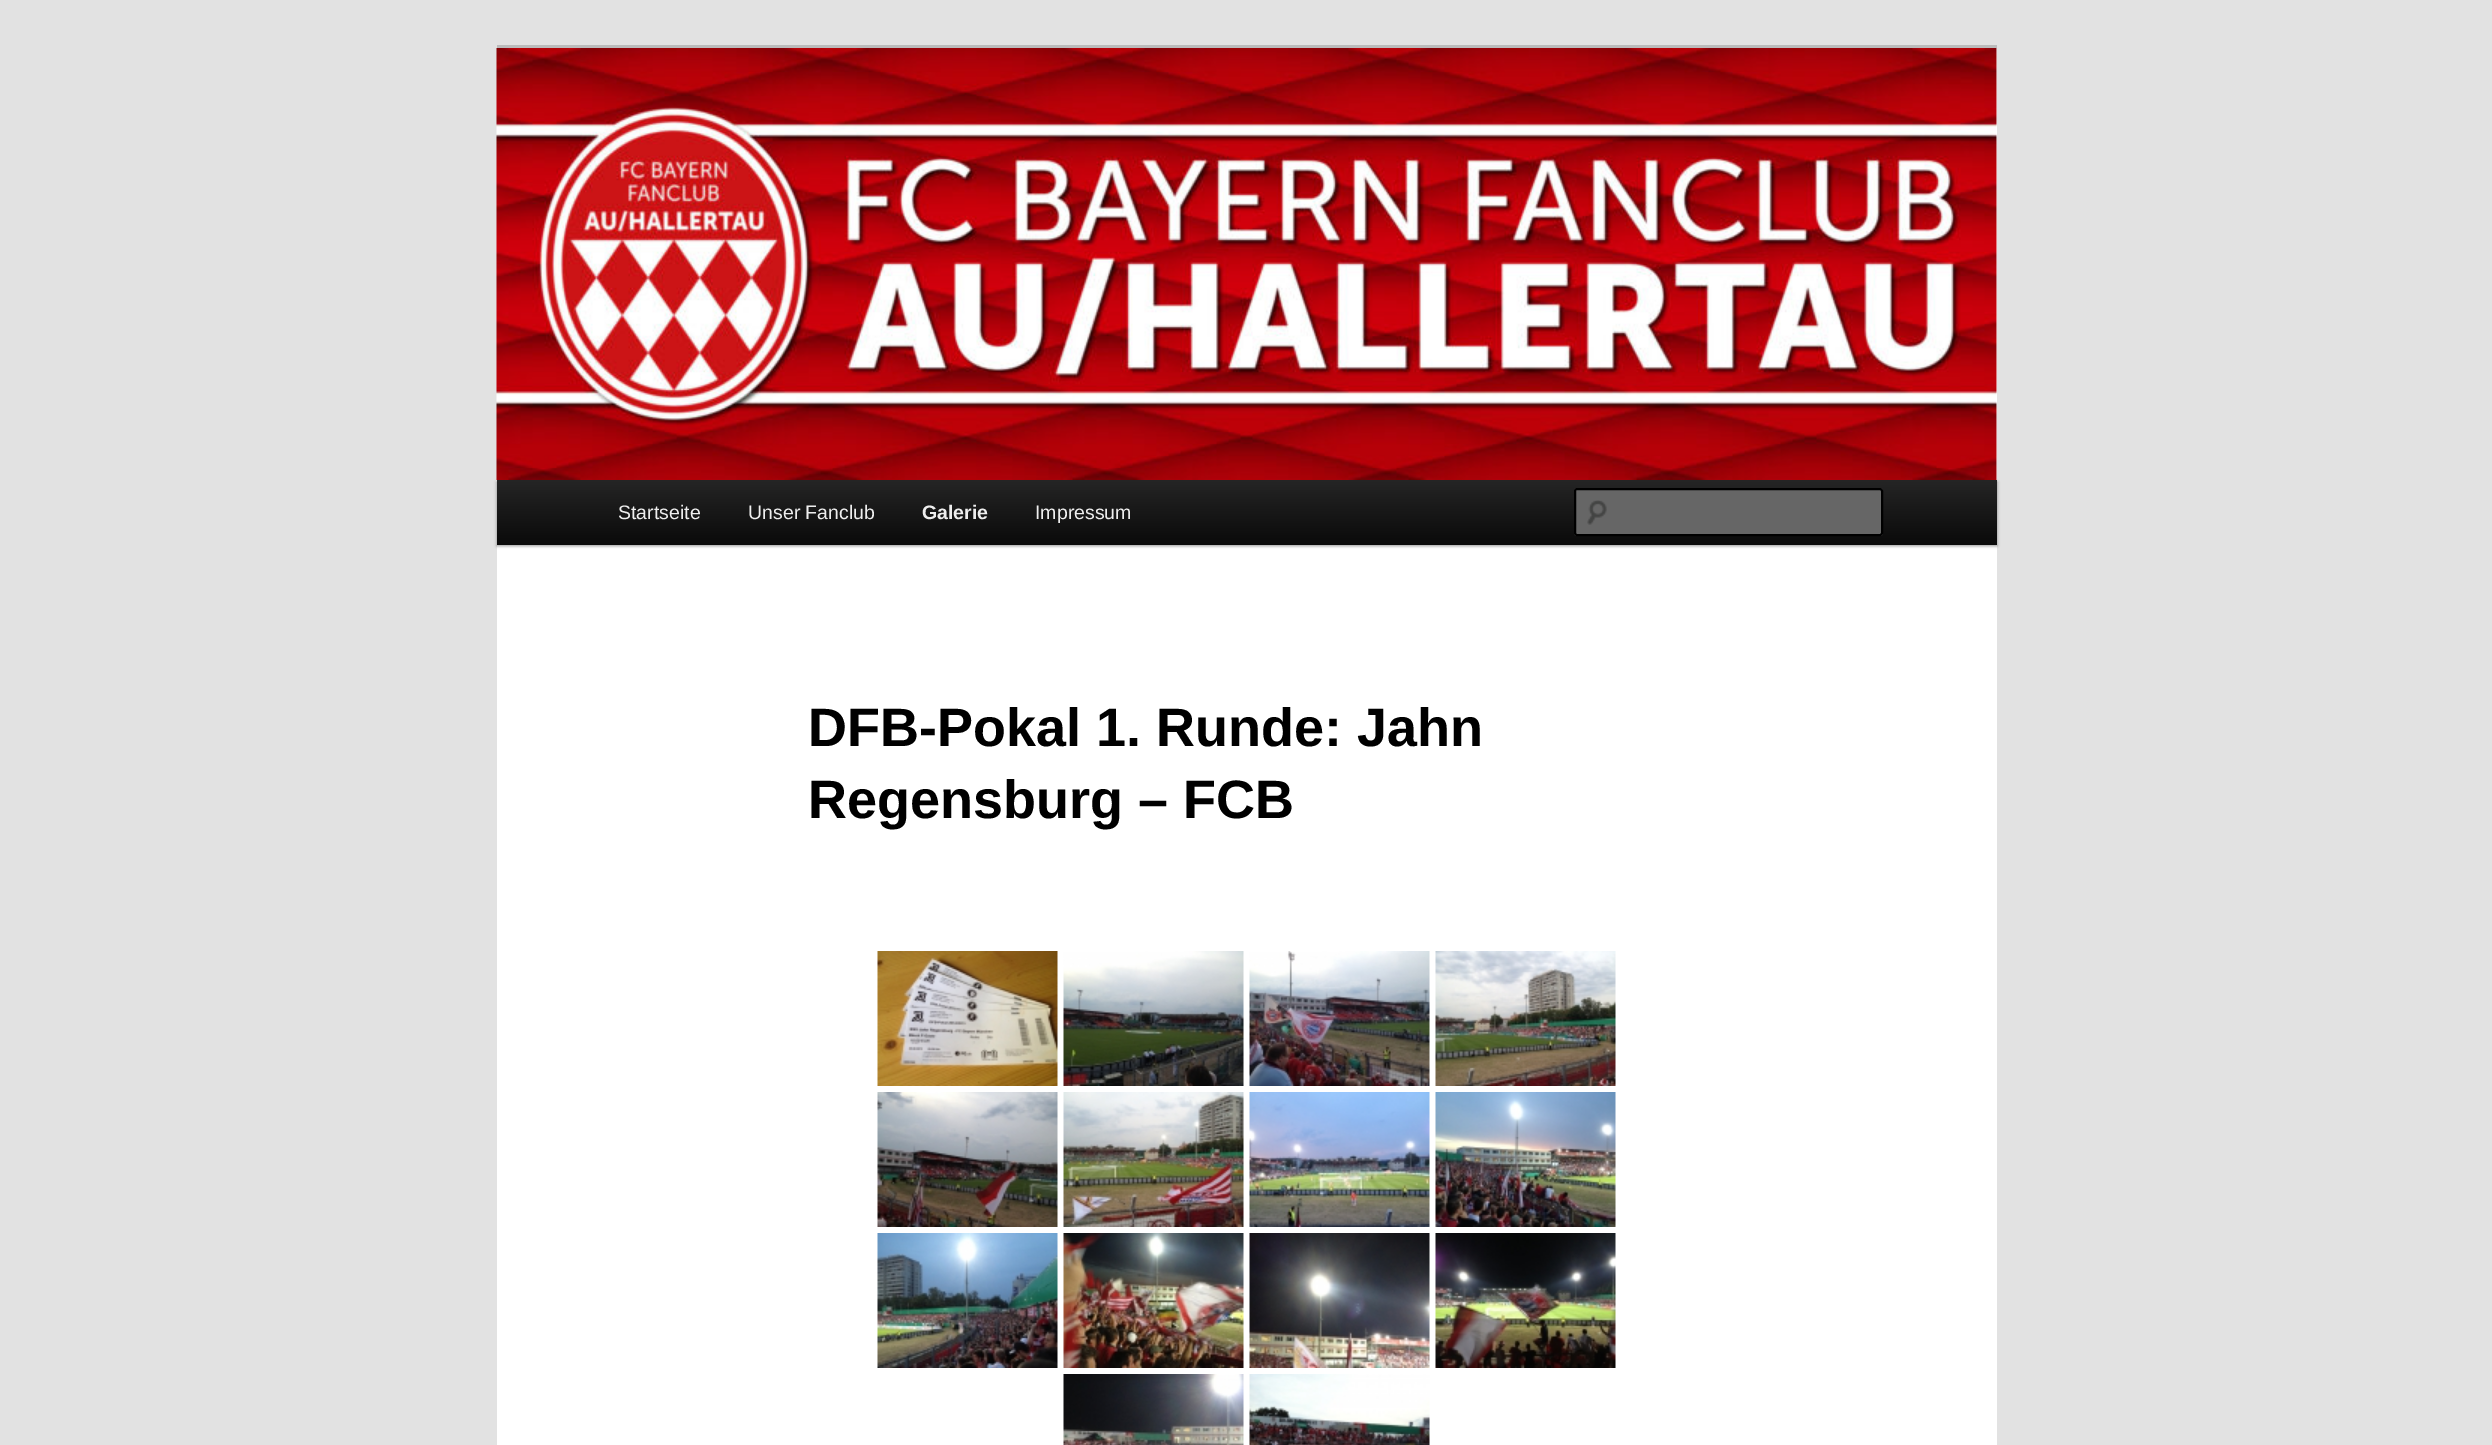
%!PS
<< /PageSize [2492 1445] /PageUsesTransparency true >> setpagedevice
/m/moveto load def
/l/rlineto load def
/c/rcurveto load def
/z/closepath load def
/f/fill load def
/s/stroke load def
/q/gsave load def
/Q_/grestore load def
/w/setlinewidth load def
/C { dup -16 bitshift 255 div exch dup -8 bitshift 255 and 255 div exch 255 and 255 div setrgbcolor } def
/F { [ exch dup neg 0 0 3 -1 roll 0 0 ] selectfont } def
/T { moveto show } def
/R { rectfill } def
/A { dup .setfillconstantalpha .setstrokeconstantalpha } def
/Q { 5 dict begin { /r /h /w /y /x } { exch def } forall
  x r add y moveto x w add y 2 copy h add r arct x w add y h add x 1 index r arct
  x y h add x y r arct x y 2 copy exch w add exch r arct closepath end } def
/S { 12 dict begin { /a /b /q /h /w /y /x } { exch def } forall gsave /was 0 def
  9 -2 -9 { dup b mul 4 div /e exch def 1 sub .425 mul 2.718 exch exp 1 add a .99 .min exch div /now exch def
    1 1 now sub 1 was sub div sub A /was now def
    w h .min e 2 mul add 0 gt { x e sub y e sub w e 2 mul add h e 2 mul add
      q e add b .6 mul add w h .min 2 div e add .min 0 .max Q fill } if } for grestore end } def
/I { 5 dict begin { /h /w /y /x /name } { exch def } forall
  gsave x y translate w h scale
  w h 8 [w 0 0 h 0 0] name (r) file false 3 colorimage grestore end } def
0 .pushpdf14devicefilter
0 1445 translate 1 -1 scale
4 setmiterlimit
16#E2E2E2 C
0 0 2492 1445 R
16#FFFFFF C
497 48 1500 1397 R
16#BBBBBB C
497 45 1500 3 R
16#000000 C
497 482 1500 64 0 1.5 .4 S
(1.rgb) 496 48 1501 432 I
q 497 480 m 1500 0 l 0 65 l -1500 0 l z clip newpath
<< /ShadingType 2 /ColorSpace /DeviceRGB /Coords [1247 480 1247 545] /Extend [true true] /Function << /FunctionType 2 /Domain [0 1] /C0 [.145 .145 .145] /C1 [.039 .039 .039] /N 1 >> >> shfill Q_
/LiberationSans-Regular 19.5 F
16#EEEEEE C
(Startseite) 618 519 T
(Unser Fanclub) 748 519 T
/LiberationSans-Bold 19.5 F
(Galerie) 922 519 T
/LiberationSans-Regular 19.5 F
(Impressum) 1035 519 T
16#666666 C
1574 488 309 48 3 Q f
(2.rgb) 1587 500 20 25 I
16#5C5C5C C
1576 490 m 304 0 l 1 2 l 0 -1 0 -3 -1 -3 c -304 0 l -1 1 l 0 2 l z f
16#000000 C
2 w
1575 489 307 46 2 Q s
/LiberationSans-Bold 54 F
(DFB-Pokal 1. Runde: Jahn) 808 746 T
(Regensburg – FCB) 808 818 T
(3.rgb) 877 951 181 135 I
(4.rgb) 1063 951 181 135 I
(5.rgb) 1249 951 181 135 I
(6.rgb) 1435 951 181 135 I
(7.rgb) 877 1092 181 135 I
(8.rgb) 1063 1092 181 135 I
(9.rgb) 1249 1092 181 135 I
(10.rgb) 1435 1092 181 135 I
(11.rgb) 877 1233 181 135 I
(12.rgb) 1063 1233 181 135 I
(13.rgb) 1249 1233 181 135 I
(14.rgb) 1435 1233 181 135 I
(15.rgb) 1063 1374 181 71 I
(16.rgb) 1249 1374 181 71 I
.poppdf14devicefilter showpage
